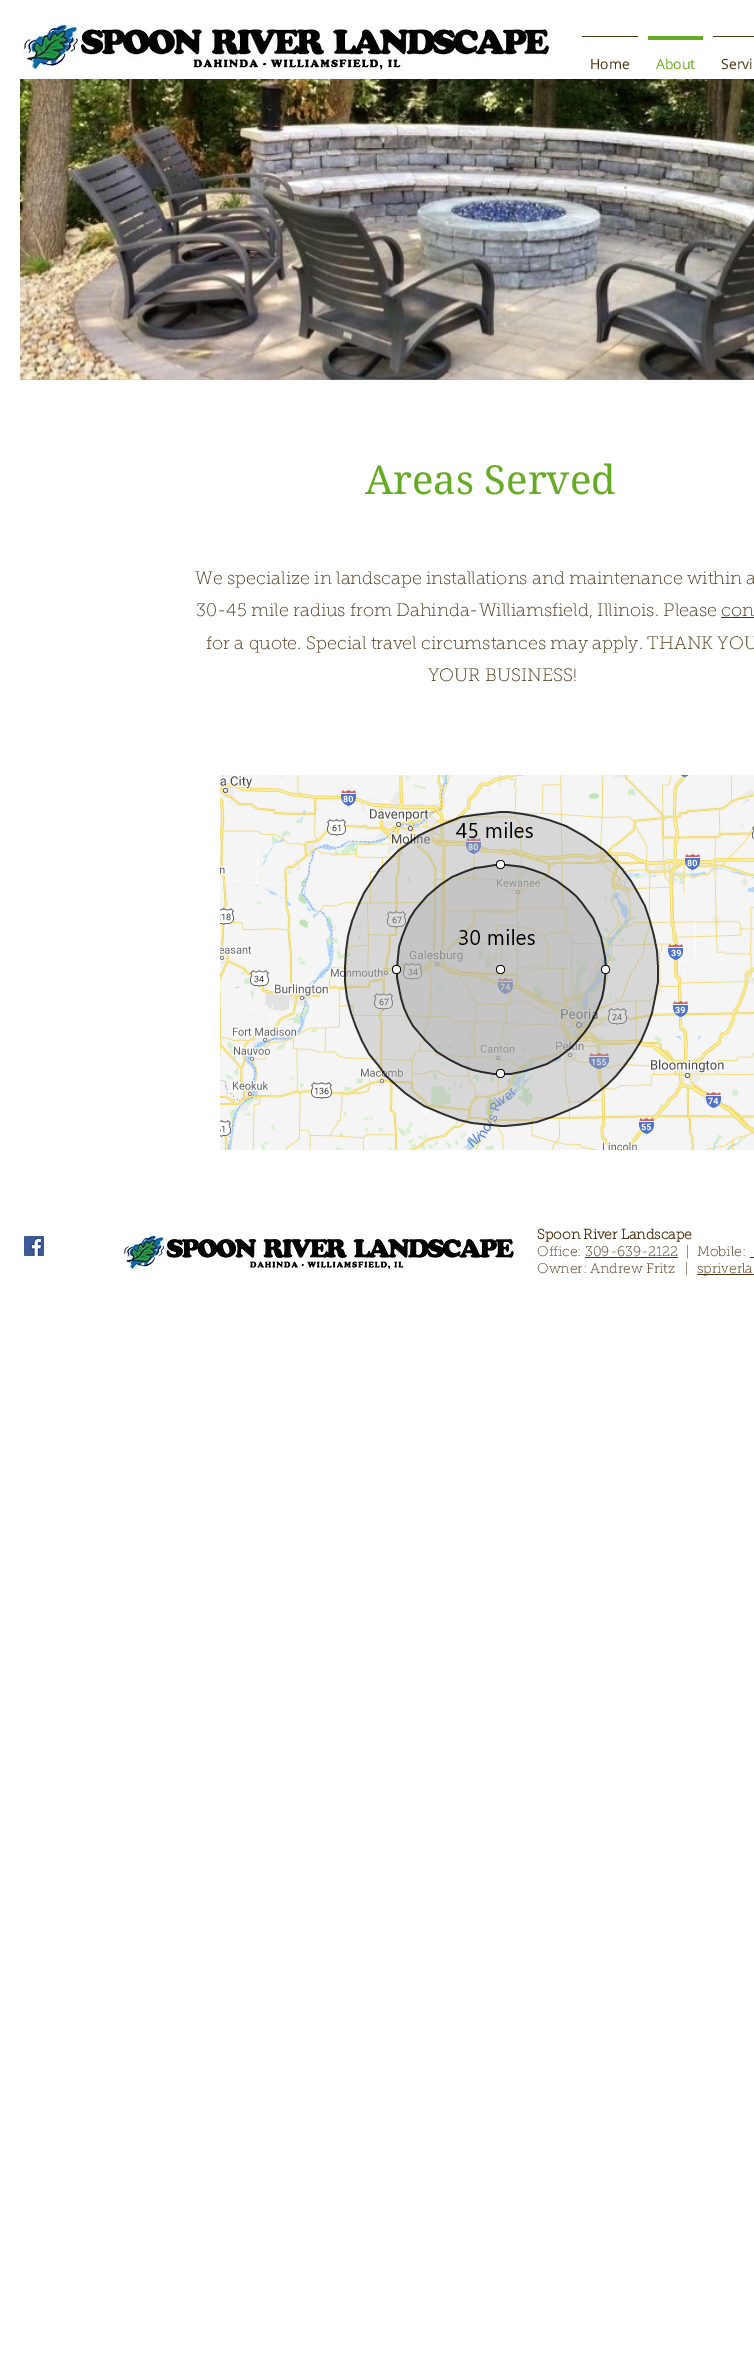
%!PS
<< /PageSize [754 2379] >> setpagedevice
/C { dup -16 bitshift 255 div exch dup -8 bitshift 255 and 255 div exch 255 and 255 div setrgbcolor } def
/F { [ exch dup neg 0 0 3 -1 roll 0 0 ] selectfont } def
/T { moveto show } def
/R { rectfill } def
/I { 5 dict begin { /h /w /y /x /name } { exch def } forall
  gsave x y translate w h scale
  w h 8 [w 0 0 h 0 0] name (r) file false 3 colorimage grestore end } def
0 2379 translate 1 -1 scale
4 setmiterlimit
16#FFFFFF C
0 0 754 2379 R
(1.rgb) 20 24 532 49 I
16#493414 C
582 36 56 1 R
/OpenSans-Regular 14 F
(Home) 590 69 T
16#65AB24 C
648 36 55 4 R
(About) 656 69 T
16#493414 C
713 36 41 1 R
(Servi) 721 69 T
(2.rgb) 20 79 734 301 I
/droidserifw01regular-Regular 40 F
16#65AB24 C
(Areas Served) 365 494 T
/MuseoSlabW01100-Thin 18 F
16#493414 C
(We specialize in landscape installations and maintenance within a) 195 584 T
(30-45 mile radius from Dahinda-Williamsfield, Illinois. Please con) 196 616 T
721 617 33 1 R
(for a quote. Special travel circumstances may apply. THANK YOU) 206 649 T
(YOUR BUSINESS!) 428 681 T
(3.rgb) 220 775 534 375 I
(4.rgb) 24 1236 20 20 I
(5.rgb) 122 1230 392 40 I
/MuseoSlabW01100-Bold 14 F
(Spoon River Landscape) 537 1239 T
/MuseoSlabW01100-Thin 14 F
(Office: 309-639-2122) 537 1256 T
585 1257 93 1 R
(|  Mobile:) 686 1256 T
750 1257 4 1 R
(Owner: Andrew Fritz   |) 537 1273 T
697 1274 57 1 R
(spriverla) 697 1273 T
showpage
